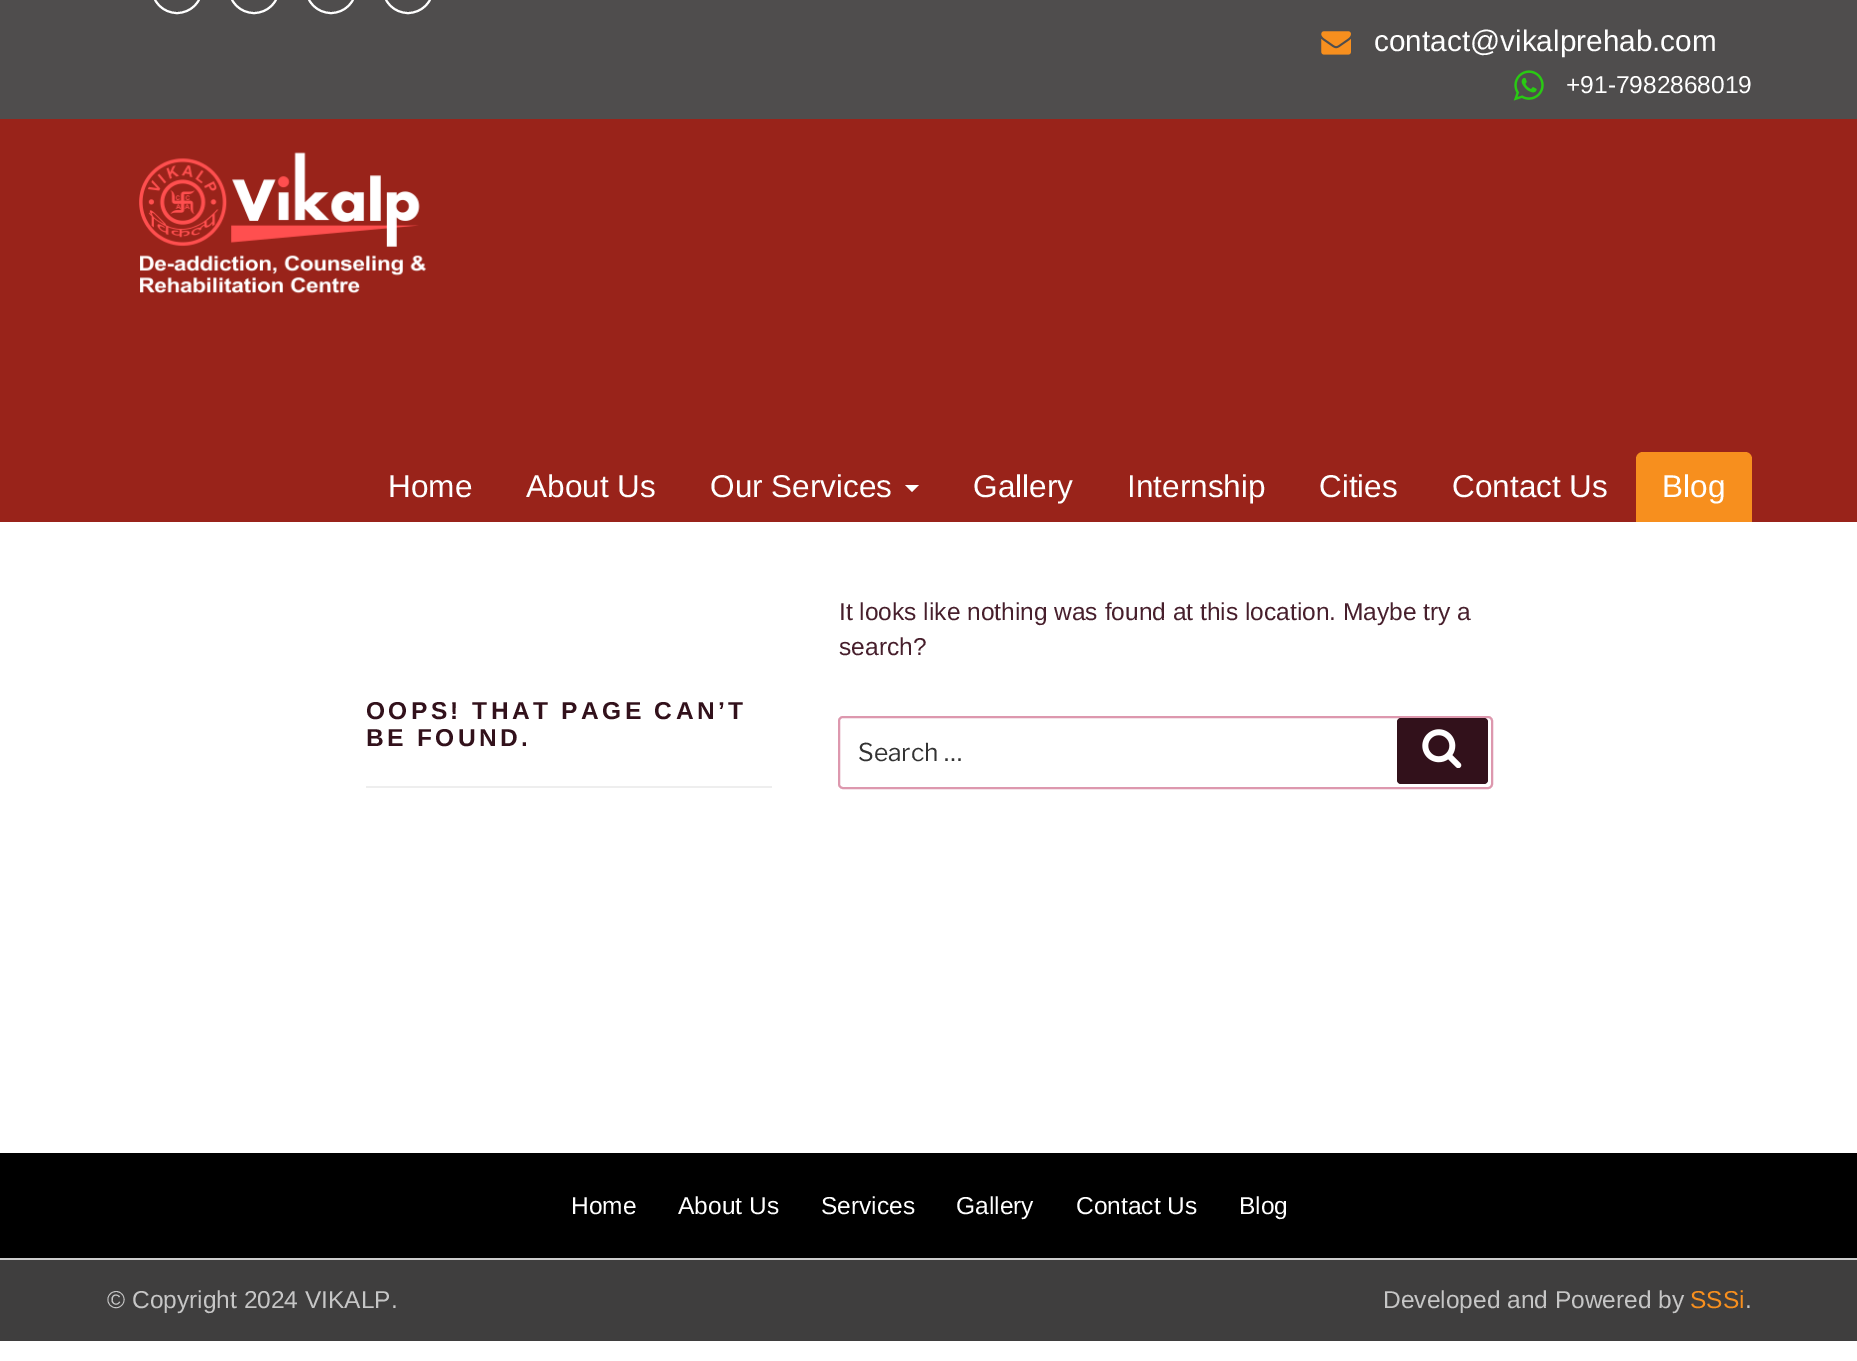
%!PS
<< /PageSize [1857 1361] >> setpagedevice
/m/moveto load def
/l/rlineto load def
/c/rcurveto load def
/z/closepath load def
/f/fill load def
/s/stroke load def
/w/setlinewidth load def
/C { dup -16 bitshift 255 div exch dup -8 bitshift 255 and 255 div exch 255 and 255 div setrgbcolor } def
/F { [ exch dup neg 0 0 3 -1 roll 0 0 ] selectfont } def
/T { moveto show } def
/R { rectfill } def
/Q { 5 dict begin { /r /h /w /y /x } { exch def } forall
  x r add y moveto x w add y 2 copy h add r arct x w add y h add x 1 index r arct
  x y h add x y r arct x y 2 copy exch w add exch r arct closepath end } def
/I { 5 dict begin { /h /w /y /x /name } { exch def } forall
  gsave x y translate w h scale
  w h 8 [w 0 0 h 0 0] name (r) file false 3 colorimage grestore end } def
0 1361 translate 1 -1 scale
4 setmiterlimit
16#FFFFFF C
0 0 1857 1361 R
16#4F4D4D C
0 0 1857 119 R
16#FFFFFF C
2 w
152 -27 50 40 25 Q s
229 -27 50 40 25 Q s
306 -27 50 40 25 Q s
383 -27 50 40 25 Q s
(1.rgb) 1321 31 30 24 I
/LiberationSans-Regular 29.75 F
(contact@vikalprehab.com) 1374 51 T
(2.rgb) 1513 70 31 31 I
/LiberationSans-Regular 24.5 F
(+91-7982868019) 1566 93 T
16#99231A C
0 119 1857 403 R
(3.rgb) 139 152 288 142 I
/LiberationSans-Regular 31.5 F
16#FFFFFF C
(Home) 388 497 T
(About Us) 526 497 T
(Our Services) 710 497 T
905 485 m 14 0 l -7 7 l z f
(Gallery) 973 497 T
(Internship) 1127 497 T
(Cities) 1319 497 T
(Contact Us) 1452 497 T
16#F78F1E C
1643 452 m 102 0 l 4 0 7 3 7 7 c 0 63 l -116 0 l 0 -63 l 0 -4 3 -7 7 -7 c z f
16#FFFFFF C
(Blog) 1662 497 T
16#EEEEEE C
366 786 406 2 R
/LiberationSans-Bold 24.5 F
16#32111B C
366 719 m 3.4 0 (OOPS! THAT PAGE CAN’T) ashow
366 746 m 3.4 0 (BE FOUND.) ashow
/LiberationSans-Regular 24.5 F
16#471F2C C
(It looks like nothing was found at this location. Maybe try a) 839 620 T
(search?) 839 655 T
16#DD98AE C
839 717 653 71 4 Q s
/LibreFranklin-Regular 24.5 F
16#333333 C
(Search …) 858 761 T
16#32111B C
1397 718 91 66 4 Q f
(4.rgb) 1422 729 40 39 I
16#000000 C
0 1153 1857 105 R
16#CCCCCC C
0 1258 1857 2 R
/LiberationSans-Regular 24.5 F
16#FFFFFF C
(Home) 571 1214 T
(About Us) 678 1214 T
(Services) 821 1214 T
(Gallery) 956 1214 T
(Contact Us) 1076 1214 T
(Blog) 1239 1214 T
16#3F3E3E C
0 1260 1857 81 R
16#C6C6C6 C
(© Copyright 2024 VIKALP.) 107 1308 T
(Developed and Powered by) 1383 1308 T
16#F78F1E C
(SSSi) 1690 1308 T
16#C6C6C6 C
(.) 1745 1308 T
showpage
